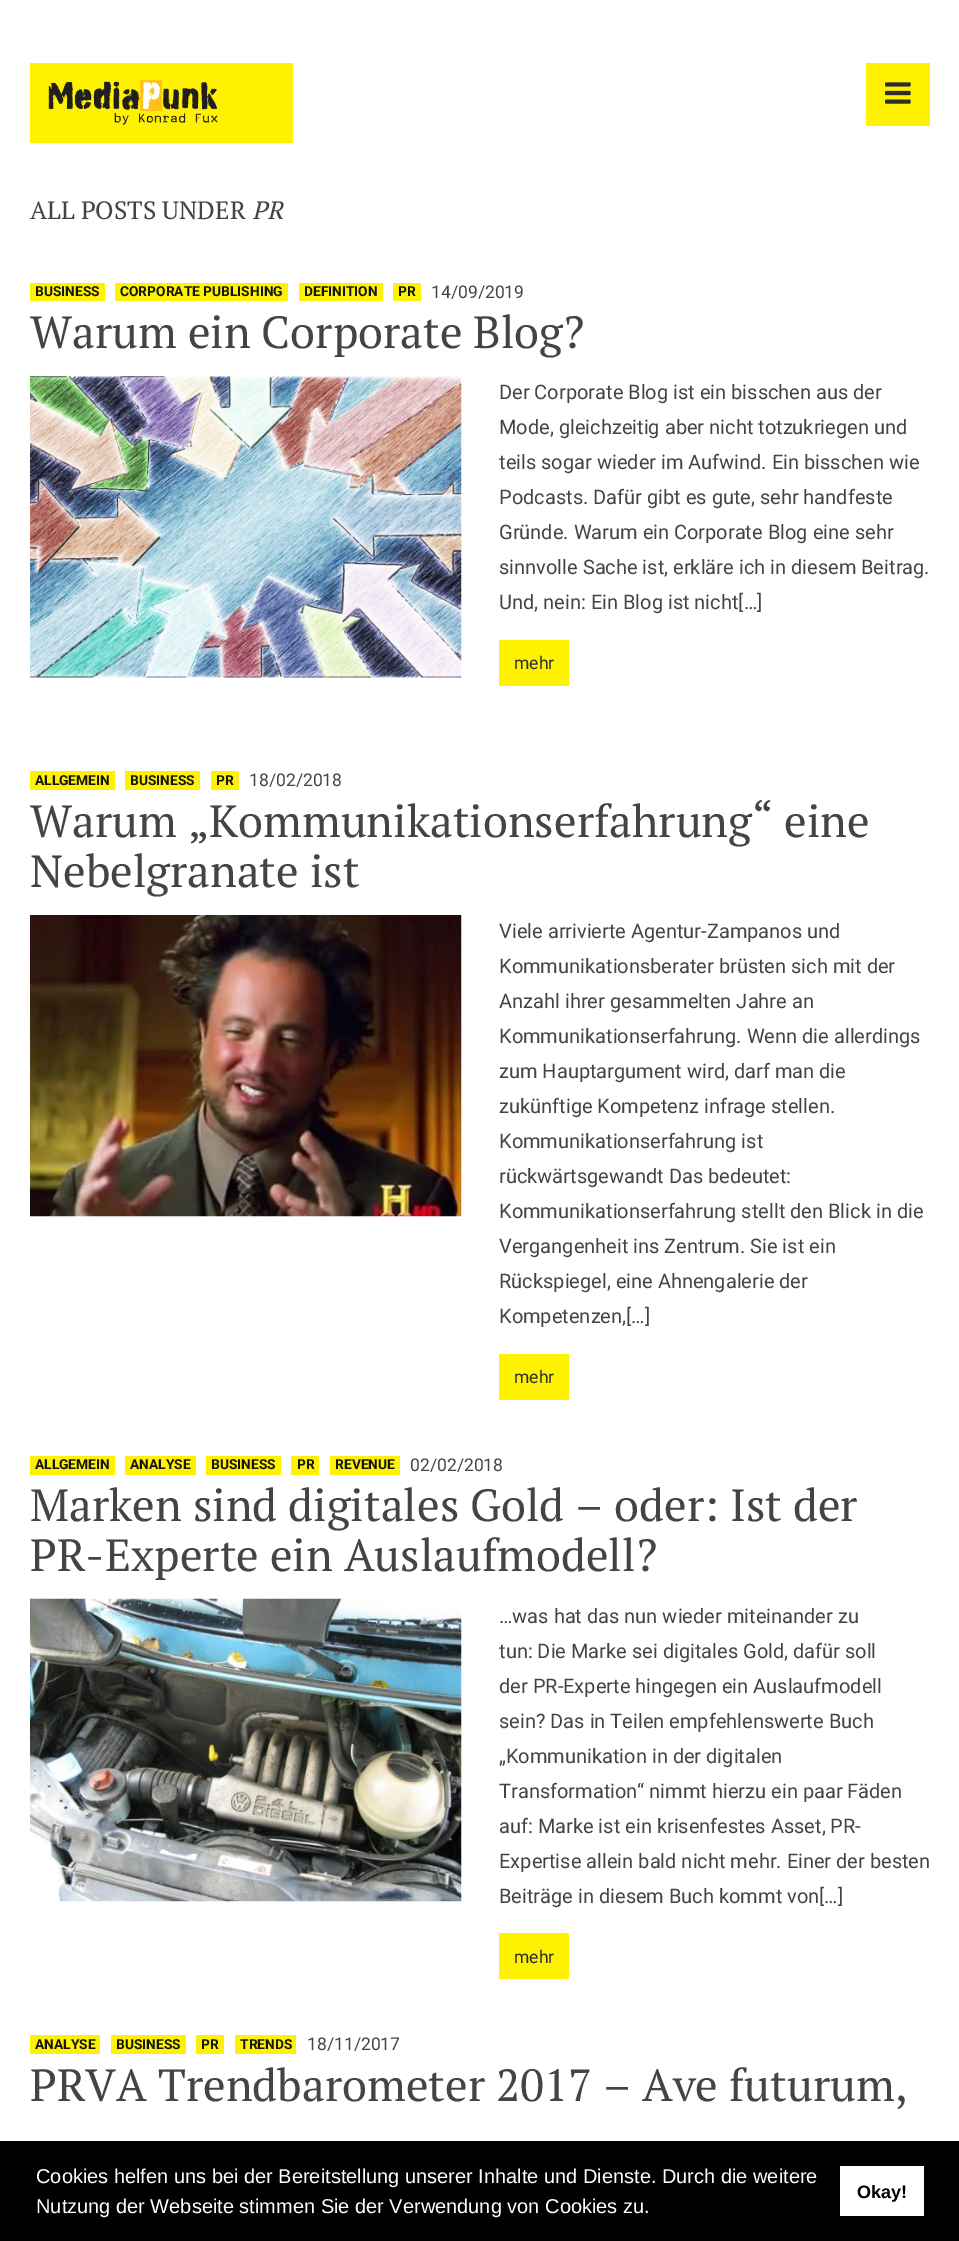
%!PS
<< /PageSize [959 2241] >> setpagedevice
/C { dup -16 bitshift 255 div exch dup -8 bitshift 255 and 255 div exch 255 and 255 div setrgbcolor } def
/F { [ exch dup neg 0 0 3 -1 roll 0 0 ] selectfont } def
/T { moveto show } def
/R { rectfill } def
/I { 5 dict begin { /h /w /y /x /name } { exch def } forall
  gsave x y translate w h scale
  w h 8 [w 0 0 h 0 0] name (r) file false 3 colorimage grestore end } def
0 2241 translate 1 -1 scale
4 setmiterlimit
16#FFFFFF C
0 0 959 2241 R
16#FFF200 C
30 63 263 80 R
(1.rgb) 48 80 170 45 I
866 63 64 63 R
(2.rgb) 885 82 26 22 I
/PTSerif-Regular 25 F
16#444444 C
(ALL POSTS UNDER) 30 219 T
/PTSerif-Italic 25 F
(PR) 252 219 T
16#FFF200 C
30 283 75 18 R
/Roboto-Bold 13.75 F
16#141414 C
(BUSINESS) 35 296 T
16#FFF200 C
115 283 173 18 R
16#141414 C
(CORPORATE PUBLISHING) 120 296 T
16#FFF200 C
299 283 84 18 R
16#141414 C
(DEFINITION) 304 296 T
16#FFF200 C
393 283 28 18 R
16#141414 C
(PR) 398 296 T
/Roboto-Regular 17.5 F
16#444444 C
(14/09/2019) 431 298 T
/PTSerif-Regular 45 F
(Warum ein Corporate Blog?) 30 348 T
(3.rgb) 30 376 432 302 I
/Roboto-Regular 20 F
(Der Corporate Blog ist ein bisschen aus der) 499 399 T
(Mode, gleichzeitig aber nicht totzukriegen und) 499 434 T
(teils sogar wieder im Aufwind. Ein bisschen wie) 499 469 T
(Podcasts. Dafür gibt es gute, sehr handfeste) 499 504 T
(Gründe. Warum ein Corporate Blog eine sehr) 499 539 T
(sinnvolle Sache ist, erkläre ich in diesem Beitrag.) 499 574 T
(Und, nein: Ein Blog ist nicht[…]) 499 609 T
16#FFF200 C
499 640 70 46 R
/Roboto-Regular 17.5 F
16#2E2E2E C
(mehr) 514 669 T
16#FFF200 C
30 771 85 19 R
/Roboto-Bold 13.75 F
16#141414 C
(ALLGEMEIN) 35 785 T
16#FFF200 C
125 771 75 19 R
16#141414 C
(BUSINESS) 130 785 T
16#FFF200 C
211 771 28 19 R
16#141414 C
(PR) 216 785 T
/Roboto-Regular 17.5 F
16#444444 C
(18/02/2018) 249 786 T
/PTSerif-Regular 45 F
(Warum „Kommunikationserfahrung“ eine) 30 837 T
(Nebelgranate ist) 30 887 T
(4.rgb) 30 915 432 302 I
/Roboto-Regular 20 F
(Viele arrivierte Agentur-Zampanos und) 499 938 T
(Kommunikationsberater brüsten sich mit der) 499 973 T
(Anzahl ihrer gesammelten Jahre an) 499 1008 T
(Kommunikationserfahrung. Wenn die allerdings) 499 1043 T
(zum Hauptargument wird, darf man die) 499 1078 T
(zukünftige Kompetenz infrage stellen.) 499 1113 T
(Kommunikationserfahrung ist) 499 1148 T
(rückwärtsgewandt Das bedeutet:) 499 1183 T
(Kommunikationserfahrung stellt den Blick in die) 499 1218 T
(Vergangenheit ins Zentrum. Sie ist ein) 499 1253 T
(Rückspiegel, eine Ahnengalerie der) 499 1288 T
(Kompetenzen,[…]) 499 1323 T
16#FFF200 C
499 1354 70 46 R
/Roboto-Regular 17.5 F
16#2E2E2E C
(mehr) 514 1383 T
16#FFF200 C
30 1456 85 19 R
/Roboto-Bold 13.75 F
16#141414 C
(ALLGEMEIN) 35 1469 T
16#FFF200 C
125 1456 71 19 R
16#141414 C
(ANALYSE) 130 1469 T
16#FFF200 C
206 1456 75 19 R
16#141414 C
(BUSINESS) 211 1469 T
16#FFF200 C
291 1456 28 19 R
16#141414 C
(PR) 297 1469 T
16#FFF200 C
330 1456 70 19 R
16#141414 C
(REVENUE) 335 1469 T
/Roboto-Regular 17.5 F
16#444444 C
(02/02/2018) 410 1471 T
/PTSerif-Regular 45 F
(Marken sind digitales Gold – oder: Ist der) 30 1521 T
(PR-Experte ein Auslaufmodell?) 30 1571 T
(5.rgb) 30 1598 432 304 I
/Roboto-Regular 20 F
(…was hat das nun wieder miteinander zu) 499 1623 T
(tun: Die Marke sei digitales Gold, dafür soll) 499 1658 T
(der PR-Experte hingegen ein Auslaufmodell) 499 1693 T
(sein? Das in Teilen empfehlenswerte Buch) 499 1728 T
(„Kommunikation in der digitalen) 499 1763 T
(Transformation“ nimmt hierzu ein paar Fäden) 499 1798 T
(auf: Marke ist ein krisenfestes Asset, PR-) 499 1833 T
(Expertise allein bald nicht mehr. Einer der besten) 499 1868 T
(Beiträge in diesem Buch kommt von[…]) 499 1903 T
16#FFF200 C
499 1933 70 46 R
/Roboto-Regular 17.5 F
16#2E2E2E C
(mehr) 514 1963 T
16#FFF200 C
30 2035 70 19 R
/Roboto-Bold 13.75 F
16#141414 C
(ANALYSE) 35 2049 T
16#FFF200 C
111 2035 75 19 R
16#141414 C
(BUSINESS) 116 2049 T
16#FFF200 C
196 2035 28 19 R
16#141414 C
(PR) 201 2049 T
16#FFF200 C
235 2035 61 19 R
16#141414 C
(TRENDS) 240 2049 T
/Roboto-Regular 17.5 F
16#444444 C
(18/11/2017) 307 2050 T
/PTSerif-Regular 45 F
(PRVA Trendbarometer 2017 – Ave futurum,) 30 2101 T
16#000000 C
0 2141 959 100 R
/LiberationSans-Regular 20 F
16#FFFFFF C
(Cookies helfen uns bei der Bereitstellung unserer Inhalte und Dienste. Durch die weitere) 36 2183 T
(Nutzung der Webseite stimmen Sie der Verwendung von Cookies zu.) 36 2213 T
840 2166 84 50 R
/LiberationSans-Bold 18 F
16#000000 C
(Okay!) 857 2198 T
showpage
